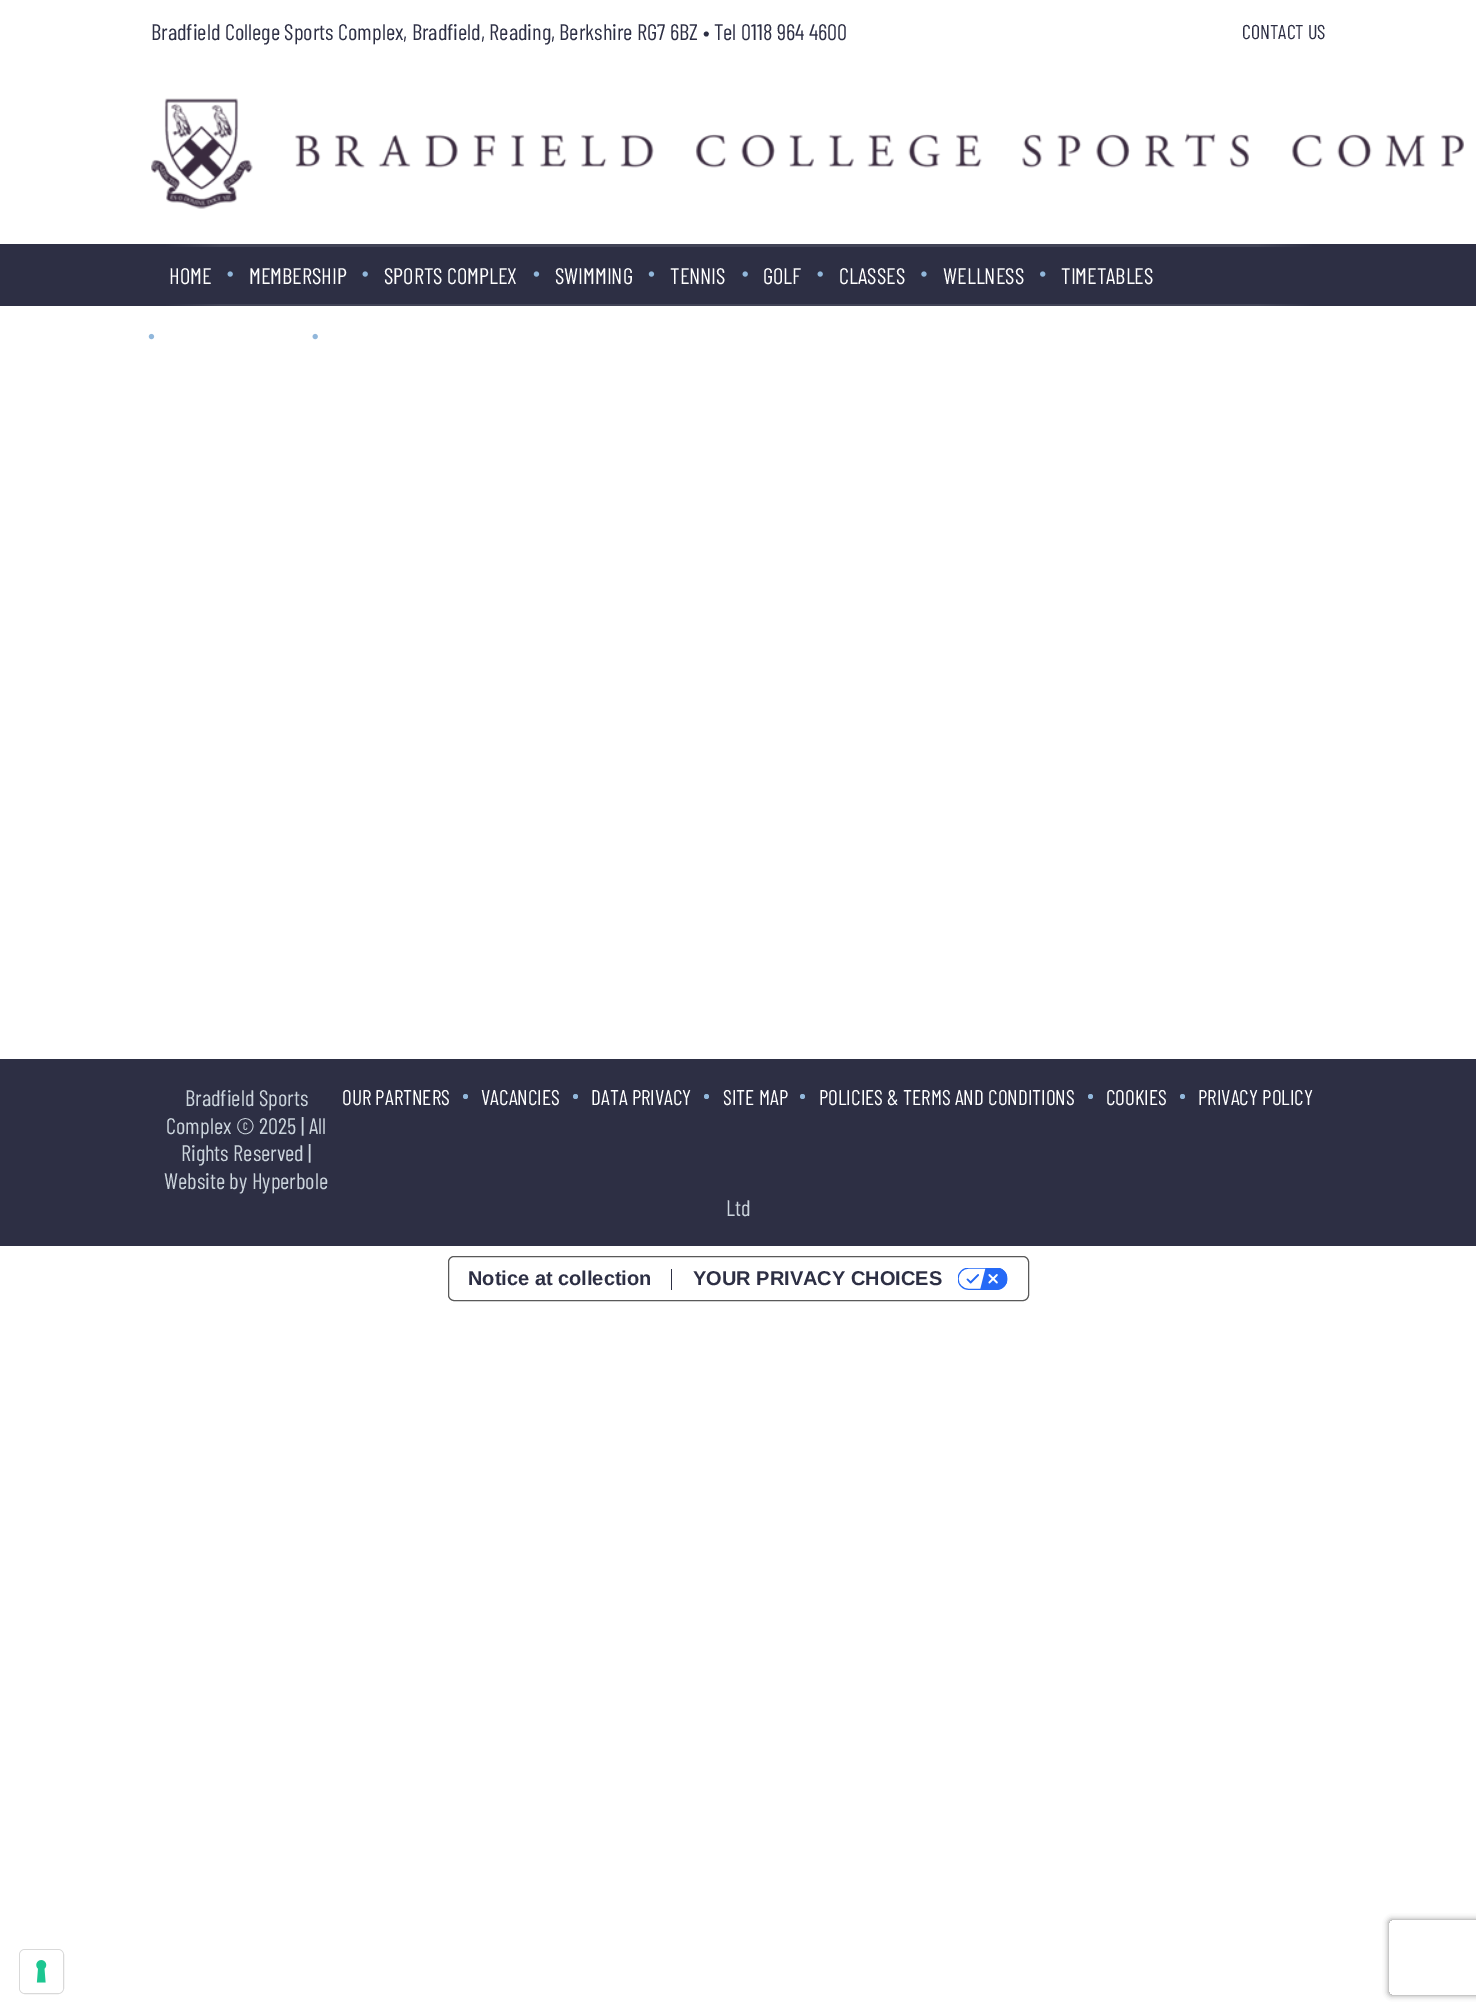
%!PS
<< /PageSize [1476 2012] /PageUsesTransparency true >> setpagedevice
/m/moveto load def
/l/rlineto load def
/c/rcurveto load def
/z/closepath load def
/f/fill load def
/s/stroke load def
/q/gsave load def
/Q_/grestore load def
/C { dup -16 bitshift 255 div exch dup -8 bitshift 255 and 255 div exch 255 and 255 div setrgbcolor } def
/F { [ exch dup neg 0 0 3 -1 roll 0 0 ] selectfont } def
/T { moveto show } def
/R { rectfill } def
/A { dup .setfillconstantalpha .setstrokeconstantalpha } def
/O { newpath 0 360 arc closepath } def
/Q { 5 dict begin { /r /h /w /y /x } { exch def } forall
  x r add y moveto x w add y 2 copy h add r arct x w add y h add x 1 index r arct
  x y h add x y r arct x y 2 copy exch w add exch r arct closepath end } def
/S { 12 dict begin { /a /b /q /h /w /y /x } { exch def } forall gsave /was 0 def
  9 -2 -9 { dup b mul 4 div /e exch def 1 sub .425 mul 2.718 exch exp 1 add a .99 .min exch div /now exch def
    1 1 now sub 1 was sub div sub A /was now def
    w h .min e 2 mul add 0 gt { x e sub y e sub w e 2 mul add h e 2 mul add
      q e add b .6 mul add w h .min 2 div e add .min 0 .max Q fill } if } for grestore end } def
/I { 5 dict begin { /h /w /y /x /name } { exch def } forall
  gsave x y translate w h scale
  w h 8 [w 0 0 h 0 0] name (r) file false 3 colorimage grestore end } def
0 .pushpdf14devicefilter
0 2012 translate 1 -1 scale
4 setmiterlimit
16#FFFFFF C
0 0 1476 2012 R
/BarlowCondensed-Regular 22.5 F
16#2D2F44 C
(Bradfield College Sports Complex, Bradfield, Reading, Berkshire RG7 6BZ • Tel 0118 964 4600) 151 40 T
/BarlowCondensed-Regular 20 F
(CONTACT US) 1242 39 T
(1.rgb) 151 98 1313 111 I
0 244 1476 62 R
q 163 304 m 1152 0 l 0 2 l -1152 0 l z clip newpath
<< /ShadingType 2 /ColorSpace /DeviceRGB /Coords [163 305 1315 305] /Extend [true true] /Function << /FunctionType 3 /Domain [0 1] /Functions [<< /FunctionType 2 /Domain [0 1] /C0 [.176 .184 .267] /C1 [.259 .267 .341] /N 1 >> << /FunctionType 2 /Domain [0 1] /C0 [.259 .267 .341] /C1 [.259 .267 .341] /N 1 >> << /FunctionType 2 /Domain [0 1] /C0 [.259 .267 .341] /C1 [.176 .184 .267] /N 1 >>] /Bounds [.05 .95] /Encode [0 1 0 1 0 1] >> >> shfill Q_
q 163 244 m 1152 0 l 0 3 l -1152 0 l z clip newpath
<< /ShadingType 2 /ColorSpace /DeviceRGB /Coords [163 245 1315 245] /Extend [true true] /Function << /FunctionType 3 /Domain [0 1] /Functions [<< /FunctionType 2 /Domain [0 1] /C0 [.176 .184 .267] /C1 [.259 .267 .341] /N 1 >> << /FunctionType 2 /Domain [0 1] /C0 [.259 .267 .341] /C1 [.259 .267 .341] /N 1 >> << /FunctionType 2 /Domain [0 1] /C0 [.259 .267 .341] /C1 [.176 .184 .267] /N 1 >>] /Bounds [.05 .95] /Encode [0 1 0 1 0 1] >> >> shfill Q_
/BarlowCondensed-Regular 22.5 F
16#FFFFFF C
(HOME) 169 284 T
(2.rgb) 227 271 6 6 I
(MEMBERSHIP) 249 284 T
(2.rgb) 362 271 6 6 I
(SPORTS COMPLEX) 384 284 T
(3.rgb) 533 271 7 6 I
(SWIMMING) 555 284 T
(3.rgb) 648 271 7 6 I
(TENNIS) 670 284 T
(2.rgb) 742 271 6 6 I
(GOLF) 763 284 T
(2.rgb) 817 271 6 6 I
(CLASSES) 839 284 T
(4.rgb) 921 271 6 6 I
(WELLNESS) 943 284 T
(5.rgb) 1040 271 6 6 I
(TIMETABLES) 1061 284 T
(6.rgb) 148 333 7 7 I
(7.rgb) 312 333 6 7 I
16#2D2F44 C
0 1059 1476 187 R
16#CCD5DD C
(Bradfield Sports) 185 1106 T
/BarlowCondensed-Regular 21.25 F
16#FFFFFF C
(OUR PARTNERS) 342 1105 T
16#91B7DB C
465.5 1096.5 2.5 O f
16#FFFFFF C
(VACANCIES) 481 1105 T
16#91B7DB C
575.5 1096.5 2.5 O f
16#FFFFFF C
(DATA PRIVACY) 591 1105 T
16#91B7DB C
706.5 1096.5 2.5 O f
16#FFFFFF C
(SITE MAP) 723 1105 T
16#91B7DB C
802.5 1096.5 2.5 O f
16#FFFFFF C
(POLICIES & TERMS AND CONDITIONS) 819 1105 T
16#91B7DB C
1090.5 1096.5 2.5 O f
16#FFFFFF C
(COOKIES) 1106 1105 T
16#91B7DB C
1182.5 1096.5 2.5 O f
16#FFFFFF C
(PRIVACY POLICY) 1198 1105 T
/BarlowCondensed-Regular 22.5 F
16#CCD5DD C
(Complex © 2025 | All) 166 1134 T
(Rights Reserved |) 181 1161 T
(Website by Hyperbole) 164 1189 T
(Ltd) 726 1216 T
16#595959 C
448.5 1256.5 580 44 5.5 Q s
/LiberationSans-Bold 20 F
16#2D2F44 C
(Notice at collection) 468 1285 T
671 1269 1 21 R
(YOUR PRIVACY CHOICES) 693 1285 T
(8.rgb) 958 1268 50 22 I
16#D9D9D9 C
19.5 1949.5 44 44 5.5 Q s
16#FFFFFF C
20 1950 43 43 5 Q f
(9.rgb) 36 1960 11 23 I
q
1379 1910 m 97 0 l 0 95 l -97 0 l z 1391.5 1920 m 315 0 l 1.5 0 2.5 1 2.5 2.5 c 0 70 l 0 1.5 -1 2.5 -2.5 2.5 c -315 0 l -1.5 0 -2.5 -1 -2.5 -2.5 c 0 -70 l 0 -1.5 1 -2.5 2.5 -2.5 c z eoclip newpath
16#808080 C
1389 1920 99 75 2.5 3 1 S
Q_
.poppdf14devicefilter showpage
